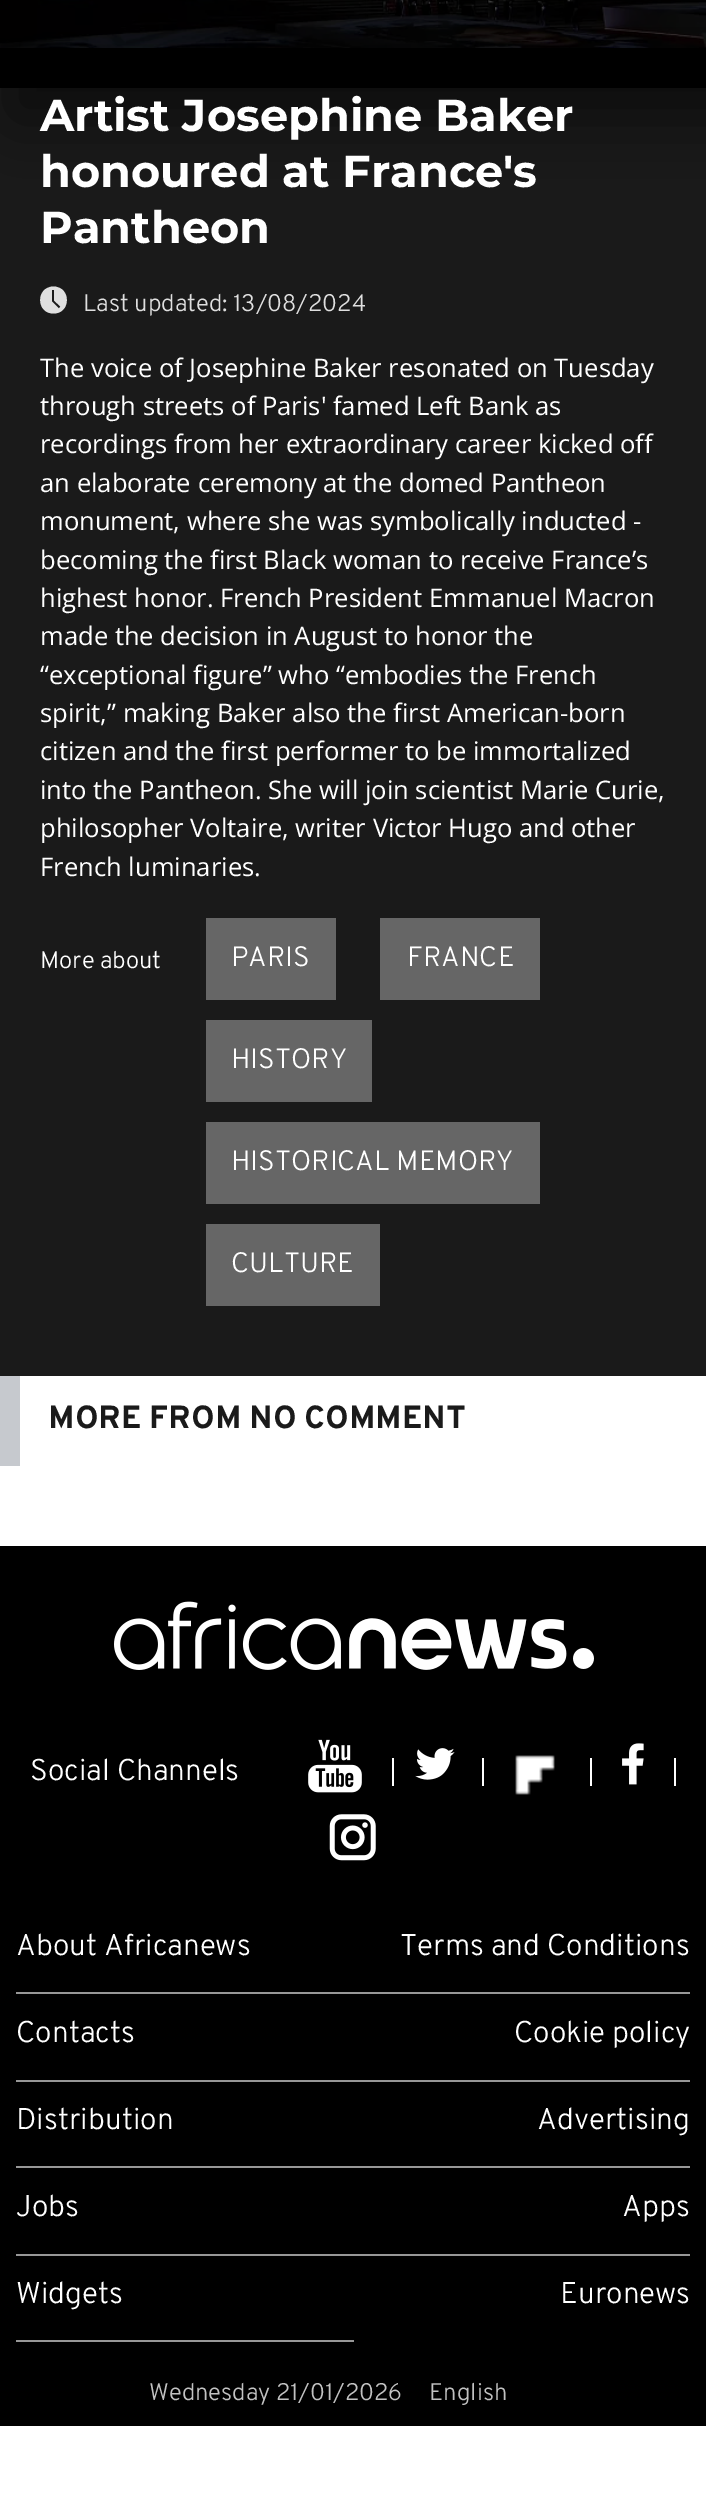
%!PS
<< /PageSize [706 2505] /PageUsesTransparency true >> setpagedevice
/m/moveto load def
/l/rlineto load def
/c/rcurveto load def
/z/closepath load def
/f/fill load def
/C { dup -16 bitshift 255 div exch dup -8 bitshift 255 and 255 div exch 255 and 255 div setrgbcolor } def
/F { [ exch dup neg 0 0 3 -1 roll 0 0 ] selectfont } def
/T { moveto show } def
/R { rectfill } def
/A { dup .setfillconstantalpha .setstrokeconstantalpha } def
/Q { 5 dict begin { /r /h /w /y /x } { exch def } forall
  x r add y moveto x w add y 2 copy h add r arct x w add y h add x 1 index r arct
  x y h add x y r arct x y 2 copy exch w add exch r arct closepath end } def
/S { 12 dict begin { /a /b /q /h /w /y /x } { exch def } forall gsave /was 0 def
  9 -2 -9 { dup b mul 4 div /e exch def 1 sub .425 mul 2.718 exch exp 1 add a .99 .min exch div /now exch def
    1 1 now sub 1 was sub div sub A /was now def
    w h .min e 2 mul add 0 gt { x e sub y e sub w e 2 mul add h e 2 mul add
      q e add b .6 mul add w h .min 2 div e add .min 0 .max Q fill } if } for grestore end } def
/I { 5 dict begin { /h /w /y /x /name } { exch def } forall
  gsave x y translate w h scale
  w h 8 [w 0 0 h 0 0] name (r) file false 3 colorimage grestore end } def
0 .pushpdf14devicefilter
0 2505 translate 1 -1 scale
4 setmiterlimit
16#FFFFFF C
0 0 706 2505 R
16#1A1A1A C
0 88 706 1288 R
(1.rgb) 0 0 706 48 I
16#000000 C
10 18 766 100 0 35 .5 S
0 48 706 40 R
/Montserrat-Thin 44.75 F
16#FFFFFF C
(Artist Josephine Baker) 40 131 T
(honoured at France's) 40 187 T
(Pantheon) 40 243 T
16#DFDFDF C
53.5 286.5 m -18 .5 -17.5 27 0 27 c 17.5 0 18 -26.5 0 -27 c z 59 308.5 m -7 -7 l 0 -11.5 l 2 0 l 0 10.5 l 6.5 6 l z f
/Overpass-Light 24 F
(Last updated: 13/08/2024) 83 311 T
/OpenSans-Regular 25.6 F
16#FFFFFF C
(The voice of Josephine Baker resonated on Tuesday) 40 377 T
(through streets of Paris' famed Left Bank as) 40 415 T
(recordings from her extraordinary career kicked off) 40 453 T
(an elaborate ceremony at the domed Pantheon) 40 492 T
(monument, where she was symbolically inducted -) 40 530 T
(becoming the first Black woman to receive France’s) 40 569 T
(highest honor. French President Emmanuel Macron) 40 607 T
(made the decision in August to honor the) 40 645 T
(“exceptional figure” who “embodies the French) 40 684 T
(spirit,” making Baker also the first American-born) 40 722 T
(citizen and the first performer to be immortalized) 40 760 T
(into the Pantheon. She will join scientist Marie Curie,) 40 799 T
(philosopher Voltaire, writer Victor Hugo and other) 40 837 T
(French luminaries.) 40 876 T
/Overpass-Light 24 F
(More about) 40 968 T
16#666666 C
206 918 130 82 R
/Overpass-Light 28 F
16#FFFFFF C
(PARIS) 231 966 T
16#666666 C
380 918 160 82 R
16#FFFFFF C
(FRANCE) 407 966 T
16#666666 C
206 1020 166 82 R
16#FFFFFF C
(HISTORY) 231 1068 T
16#666666 C
206 1122 334 82 R
16#FFFFFF C
(HISTORICAL MEMORY) 231 1170 T
16#666666 C
206 1224 174 82 R
16#FFFFFF C
(CULTURE) 231 1272 T
16#C6C9CE C
0 1376 20 90 R
/Overpass-Bold 32 F
16#1A1A1A C
(MORE FROM NO COMMENT) 48 1428 T
16#000000 C
0 1546 706 880 R
(2.rgb) 114 1601 480 69 I
/Overpass-Light 30 F
16#FFFFFF C
(Social Channels) 30 1780 T
(3.rgb) 308 1739 54 54 I
392 1758 2 28 R
482 1758 2 28 R
(4.rgb) 415 1748 40 32 I
(5.rgb) 515 1755 40 40 I
590 1758 2 28 R
674 1758 2 28 R
(6.rgb) 622 1743 22 42 I
(7.rgb) 329 1814 47 47 I
16#979797 C
16 1992 674 2 R
16#FFFFFF C
(About Africanews) 16 1955 T
(Terms and Conditions) 400 1955 T
16#979797 C
16 2080 674 2 R
16#FFFFFF C
(Contacts) 16 2042 T
(Cookie policy) 514 2042 T
16#979797 C
16 2166 674 2 R
16#FFFFFF C
(Distribution) 16 2129 T
(Advertising) 537 2129 T
16#979797 C
16 2254 674 2 R
16#FFFFFF C
(Jobs) 16 2216 T
(Apps) 622 2216 T
16#979797 C
16 2340 338 2 R
16#FFFFFF C
(Widgets) 16 2303 T
(Euronews) 560 2303 T
/Overpass-Light 24 F
16#C2C2C2 C
(Wednesday 21/01/2026) 149 2400 T
(English) 429 2400 T
.poppdf14devicefilter showpage
